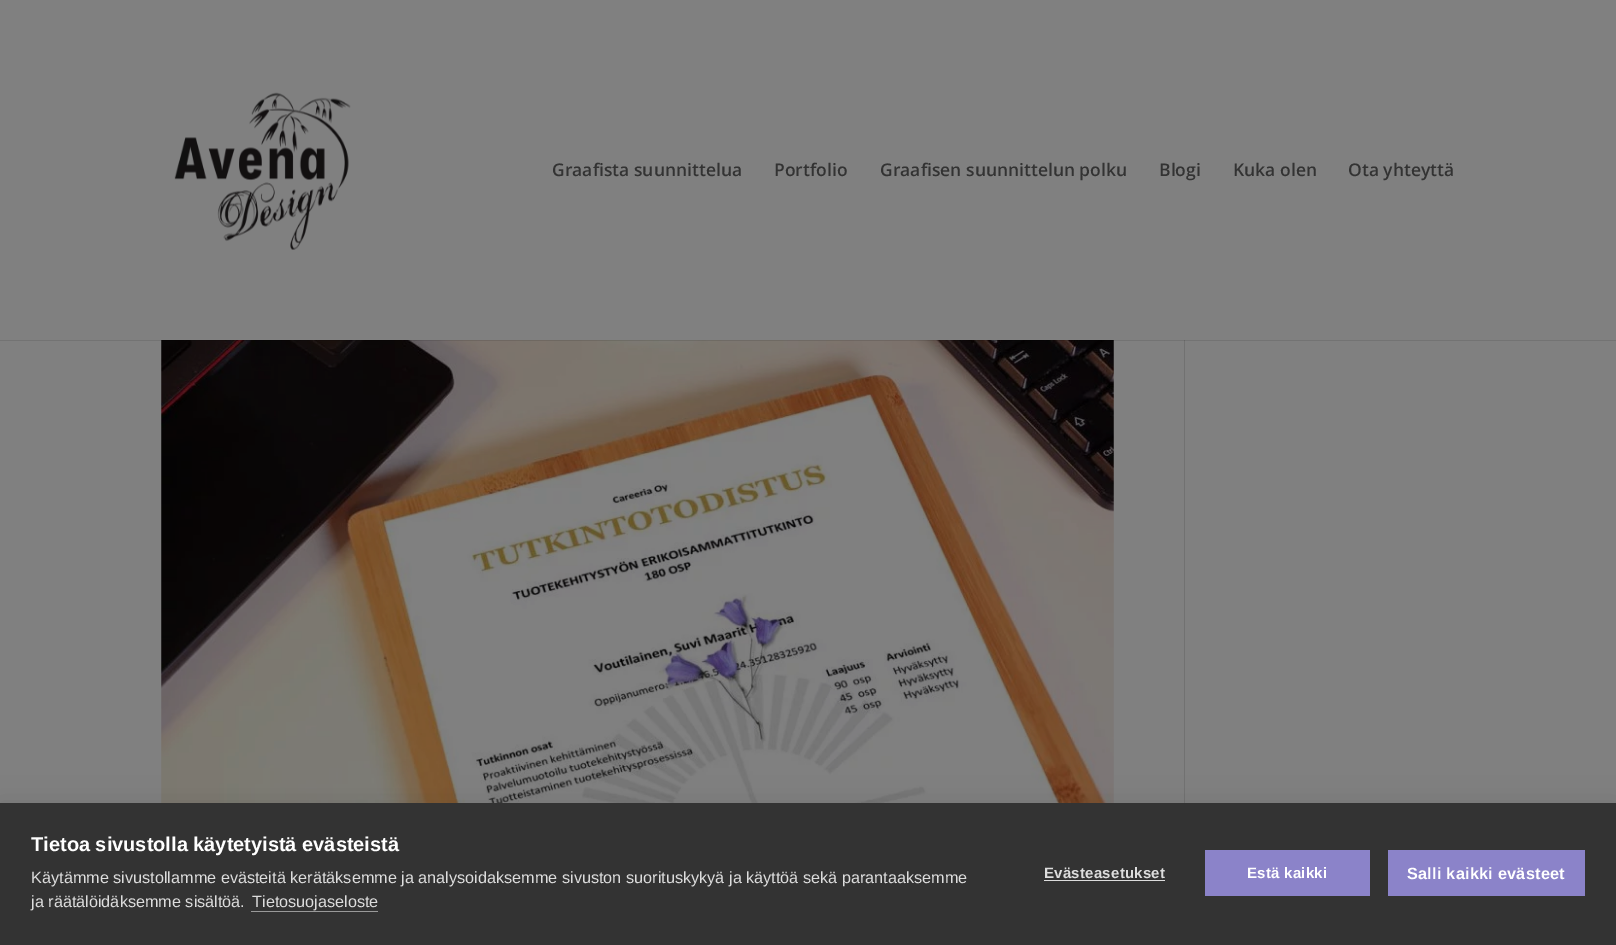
%!PS
<< /PageSize [1616 945] /PageUsesTransparency true >> setpagedevice
/m/moveto load def
/C { dup -16 bitshift 255 div exch dup -8 bitshift 255 and 255 div exch 255 and 255 div setrgbcolor } def
/F { [ exch dup neg 0 0 3 -1 roll 0 0 ] selectfont } def
/T { moveto show } def
/R { rectfill } def
/A { dup .setfillconstantalpha .setstrokeconstantalpha } def
/Q { 5 dict begin { /r /h /w /y /x } { exch def } forall
  x r add y moveto x w add y 2 copy h add r arct x w add y h add x 1 index r arct
  x y h add x y r arct x y 2 copy exch w add exch r arct closepath end } def
/S { 12 dict begin { /a /b /q /h /w /y /x } { exch def } forall gsave /was 0 def
  9 -2 -9 { dup b mul 4 div /e exch def 1 sub .425 mul 2.718 exch exp 1 add a .99 .min exch div /now exch def
    1 1 now sub 1 was sub div sub A /was now def
    w h .min e 2 mul add 0 gt { x e sub y e sub w e 2 mul add h e 2 mul add
      q e add b .6 mul add w h .min 2 div e add .min 0 .max Q fill } if } for grestore end } def
/I { 5 dict begin { /h /w /y /x /name } { exch def } forall
  gsave x y translate w h scale
  w h 8 [w 0 0 h 0 0] name (r) file false 3 colorimage grestore end } def
0 .pushpdf14devicefilter
0 945 translate 1 -1 scale
4 setmiterlimit
16#808080 C
0 0 1616 945 R
(2.rgb) 161 340 953 463 I
16#717171 C
1184 340 1 463 R
0.1 A
16#000000 C
0 340 1616 1 R
1 A
(1.rgb) 174 92 177 158 I
/OpenSans-SemiBold 17.5 F
16#333333 C
(Graafista suunnittelua) 552 176 T
(Portfolio) 774 176 T
(Graafisen suunnittelun polku) 880 176 T
(Blogi) 1159 176 T
(Kuka olen) 1233 176 T
(Ota yhteyttä) 1348 176 T
16#000000 C
0 803 1616 142 0 12.5 .1 S
16#333333 C
0 803 1616 142 R
/LiberationSans-Bold 20 F
16#FFFFFF C
(Tietoa sivustolla käytetyistä evästeistä) 31 851 T
/LiberationSans-Regular 16.25 F
16#DDDDDD C
(Käytämme sivustollamme evästeitä kerätäksemme ja analysoidaksemme sivuston suorituskykyä ja käyttöä sekä parantaaksemme) 31 883 T
(ja räätälöidäksemme sisältöä.) 31 907 T
(Tietosuojaseloste) 252 907 T
16#999999 C
251 911 127 1 R
/LiberationSans-Bold 15 F
16#DDDDDD C
1044 878 m .25 0 (Evästeasetukset) ashow
1044 880 121 1 R
16#8B83C9 C
1205 850 165 46 R
16#FFFFFF C
1247 878 m .25 0 (Estä kaikki) ashow
16#8B83C9 C
1388 850 197 46 R
/LiberationSans-Bold 16.25 F
16#FFFFFF C
1407 879 m .25 0 (Salli kaikki evästeet) ashow
.poppdf14devicefilter showpage
